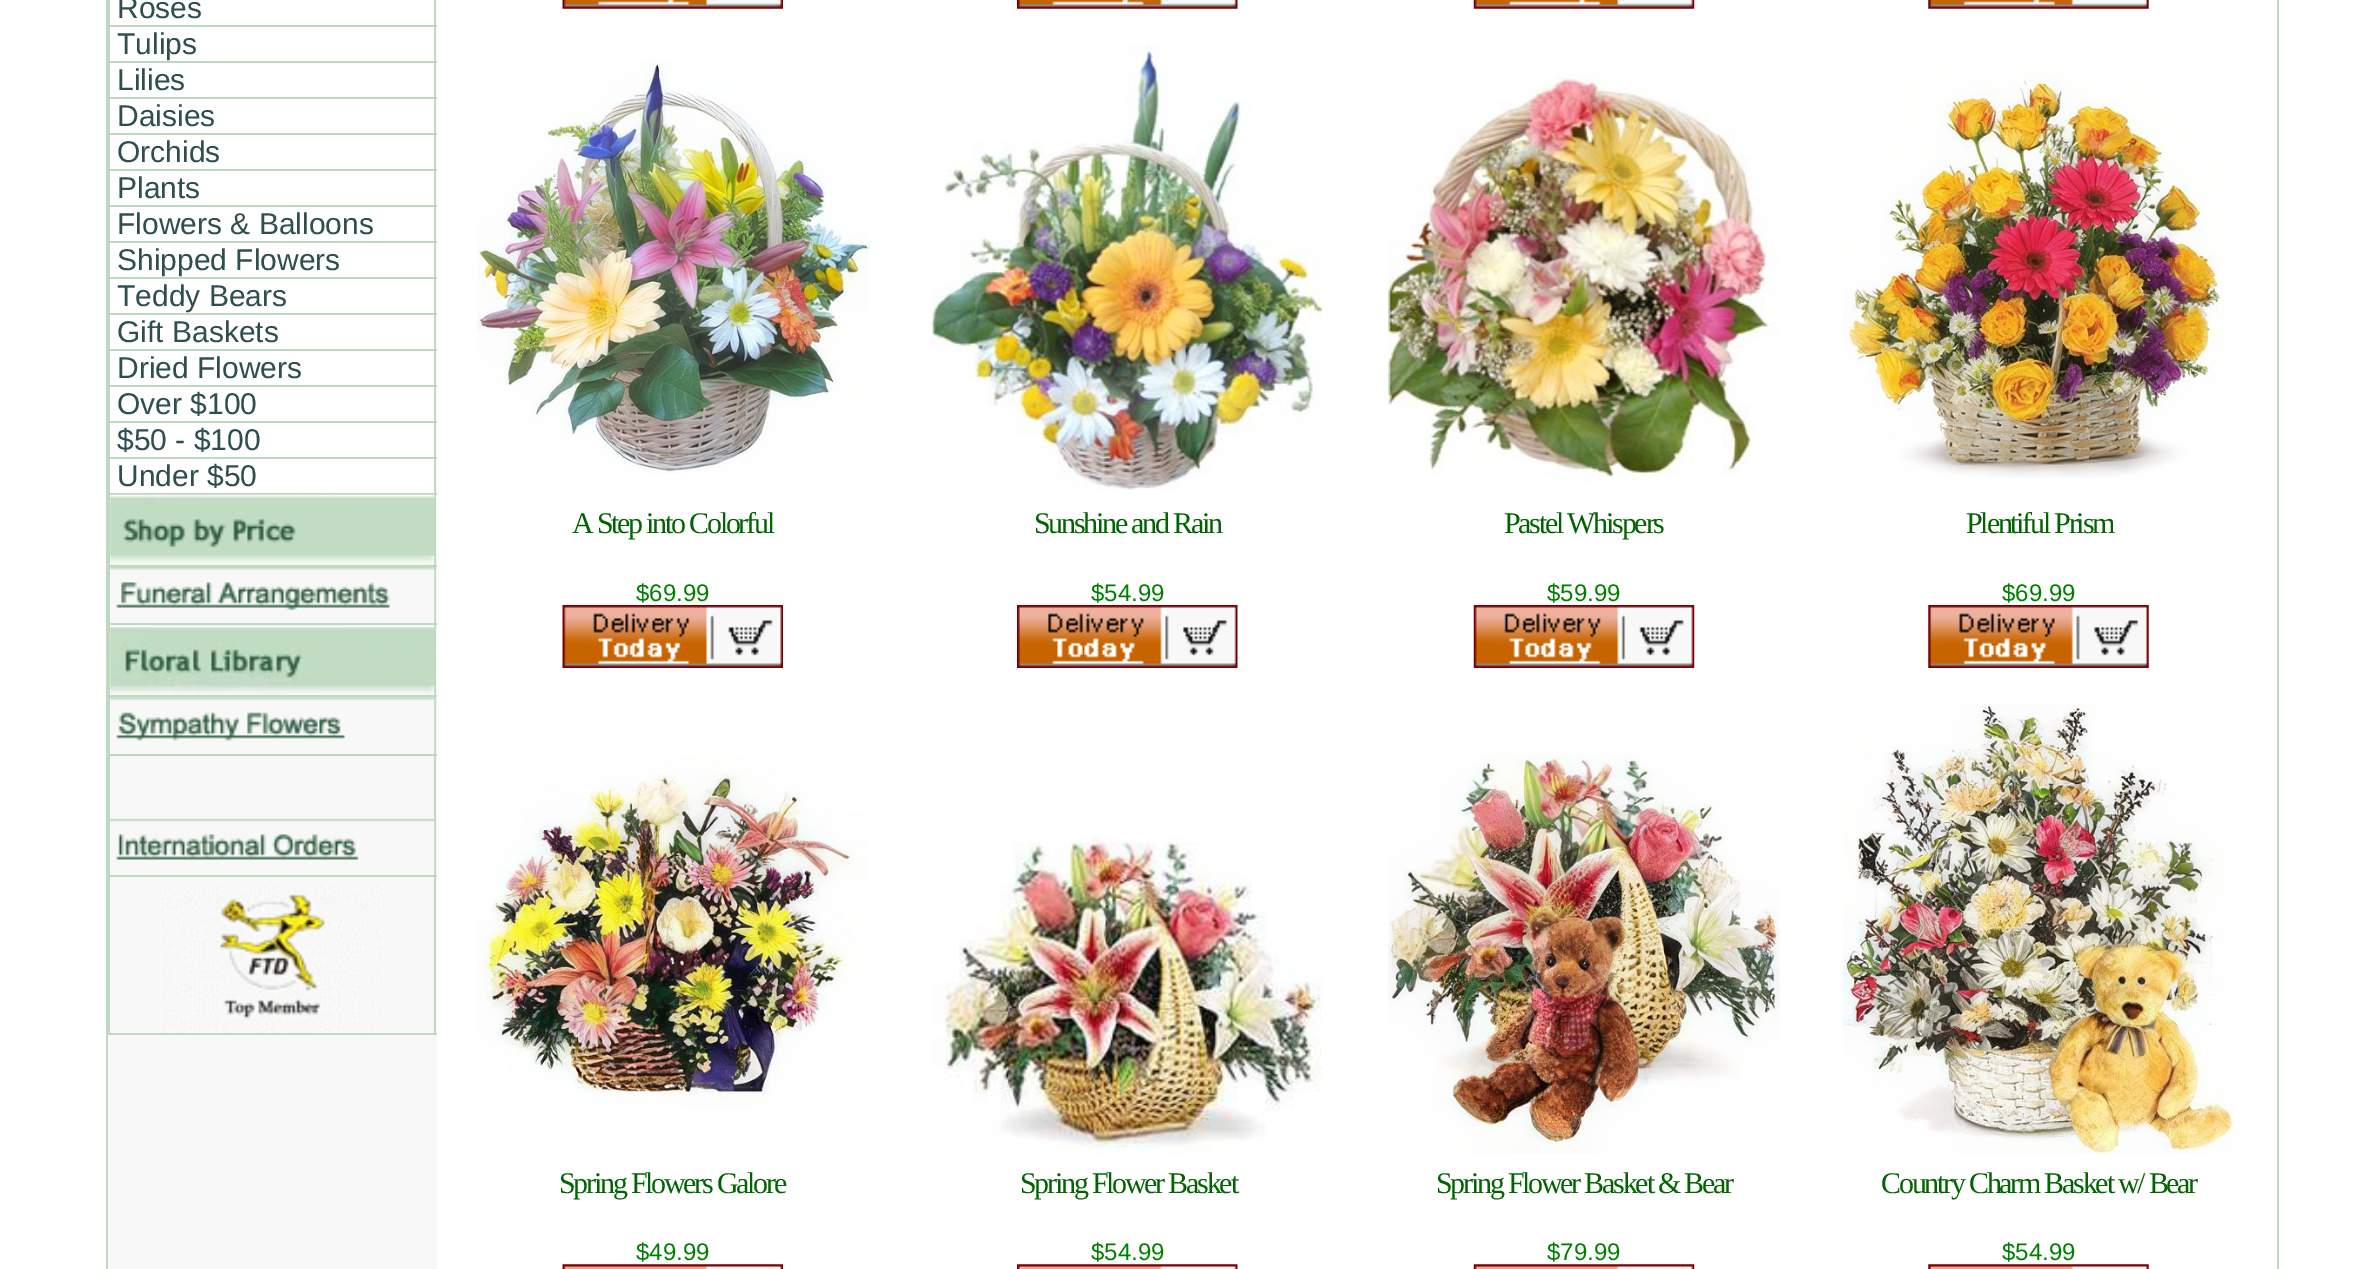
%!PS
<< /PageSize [2355 1269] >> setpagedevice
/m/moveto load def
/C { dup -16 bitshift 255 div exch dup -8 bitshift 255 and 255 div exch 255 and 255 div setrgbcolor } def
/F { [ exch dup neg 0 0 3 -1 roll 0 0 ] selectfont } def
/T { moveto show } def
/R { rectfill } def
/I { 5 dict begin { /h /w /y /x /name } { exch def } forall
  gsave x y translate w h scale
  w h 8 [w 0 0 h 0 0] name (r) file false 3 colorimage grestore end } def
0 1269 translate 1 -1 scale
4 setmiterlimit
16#FFFFFF C
0 0 2355 1269 R
16#BFD8C0 C
2277 0 2 1269 R
106 0 2 1269 R
16#F8F8F8 C
108 0 329 1269 R
16#BFD8C0 C
434 0 2 1035 R
108 1033 329 2 R
108 0 2 1035 R
16#FFFFFF C
110 0 324 25 R
/LiberationSans-Regular 30 F
16#2F4F4F C
(Roses) 117 18 T
16#FFFFFF C
110 27 324 34 R
16#BFD8C0 C
108 25 329 2 R
16#2F4F4F C
(Tulips) 117 54 T
16#FFFFFF C
110 63 324 34 R
16#BFD8C0 C
108 61 329 2 R
16#2F4F4F C
(Lilies) 117 90 T
16#FFFFFF C
110 99 324 34 R
16#BFD8C0 C
108 97 329 2 R
16#2F4F4F C
(Daisies) 117 126 T
16#FFFFFF C
110 135 324 34 R
16#BFD8C0 C
108 133 329 2 R
16#2F4F4F C
(Orchids) 117 162 T
16#FFFFFF C
110 171 324 34 R
16#BFD8C0 C
108 169 329 2 R
16#2F4F4F C
(Plants) 117 198 T
16#FFFFFF C
110 207 324 34 R
16#BFD8C0 C
108 205 329 2 R
16#2F4F4F C
(Flowers & Balloons) 117 234 T
16#FFFFFF C
110 243 324 34 R
16#BFD8C0 C
108 241 329 2 R
16#2F4F4F C
(Shipped Flowers) 117 270 T
16#FFFFFF C
110 279 324 34 R
16#BFD8C0 C
108 277 329 2 R
16#2F4F4F C
(Teddy Bears) 117 306 T
16#FFFFFF C
110 315 324 34 R
16#BFD8C0 C
108 313 329 2 R
16#2F4F4F C
(Gift Baskets) 117 342 T
16#FFFFFF C
110 351 324 34 R
16#BFD8C0 C
108 349 329 2 R
16#2F4F4F C
(Dried Flowers) 117 378 T
16#FFFFFF C
110 387 324 34 R
16#BFD8C0 C
108 385 329 2 R
16#2F4F4F C
(Over $100) 117 414 T
16#FFFFFF C
110 423 324 34 R
16#BFD8C0 C
108 421 329 2 R
16#2F4F4F C
($50 - $100) 117 450 T
16#FFFFFF C
110 459 324 34 R
16#BFD8C0 C
108 457 329 2 R
16#2F4F4F C
(Under $50) 117 486 T
16#BFD8C0 C
108 493 329 2 R
(1.rgb) 110 494 325 71 I
108 565 329 2 R
(2.rgb) 110 567 325 56 I
108 623 329 2 R
(3.rgb) 110 625 325 70 I
108 695 329 2 R
(4.rgb) 110 697 325 57 I
108 754 329 2 R
(5.rgb) 110 818 325 57 I
108 875 329 2 R
(6.rgb) 160 884 225 149 I
(7.rgb) 562 0 221 9 I
(8.rgb) 1017 0 221 9 I
(9.rgb) 1473 0 222 9 I
(10.rgb) 1928 0 221 9 I
(11.rgb) 477 59 392 415 I
/LiberationSerif-Regular 30 F
16#006500 C
572 533 m -2.25 0 (A Step into Colorful) ashow
/LiberationSans-Regular 24 F
16#008000 C
($69.99) 636 601 T
(12.rgb) 562 605 221 63 I
(13.rgb) 931 45 392 445 I
/LiberationSerif-Regular 30 F
16#006500 C
1034 533 m -2.25 0 (Sunshine and Rain) ashow
/LiberationSans-Regular 24 F
16#008000 C
($54.99) 1091 601 T
(14.rgb) 1017 605 221 63 I
(15.rgb) 1388 73 390 410 I
/LiberationSerif-Regular 30 F
16#006500 C
1504 533 m -2.25 0 (Pastel Whispers) ashow
/LiberationSans-Regular 24 F
16#008000 C
($59.99) 1547 601 T
(16.rgb) 1473 605 222 63 I
(17.rgb) 1842 57 383 421 I
/LiberationSerif-Regular 30 F
16#006500 C
1966 533 m -2.25 0 (Plentiful Prism) ashow
/LiberationSans-Regular 24 F
16#008000 C
($69.99) 2002 601 T
(18.rgb) 1928 605 221 63 I
(19.rgb) 477 753 391 357 I
/LiberationSerif-Regular 30 F
16#006500 C
559 1193 m -2.25 0 (Spring Flowers Galore) ashow
/LiberationSans-Regular 24 F
16#008000 C
($49.99) 636 1260 T
(20.rgb) 562 1264 221 5 I
(21.rgb) 931 836 391 318 I
/LiberationSerif-Regular 30 F
16#006500 C
1020 1193 m -2.25 0 (Spring Flower Basket) ashow
/LiberationSans-Regular 24 F
16#008000 C
($54.99) 1091 1260 T
(22.rgb) 1017 1264 221 5 I
(23.rgb) 1388 753 392 401 I
/LiberationSerif-Regular 30 F
16#006500 C
1436 1193 m -2.25 0 (Spring Flower Basket & Bear) ashow
/LiberationSans-Regular 24 F
16#008000 C
($79.99) 1547 1260 T
(24.rgb) 1473 1264 222 5 I
(25.rgb) 1842 704 392 450 I
/LiberationSerif-Regular 30 F
16#006500 C
1881 1193 m -2.25 0 (Country Charm Basket w/ Bear) ashow
/LiberationSans-Regular 24 F
16#008000 C
($54.99) 2002 1260 T
(26.rgb) 1928 1264 221 5 I
showpage
